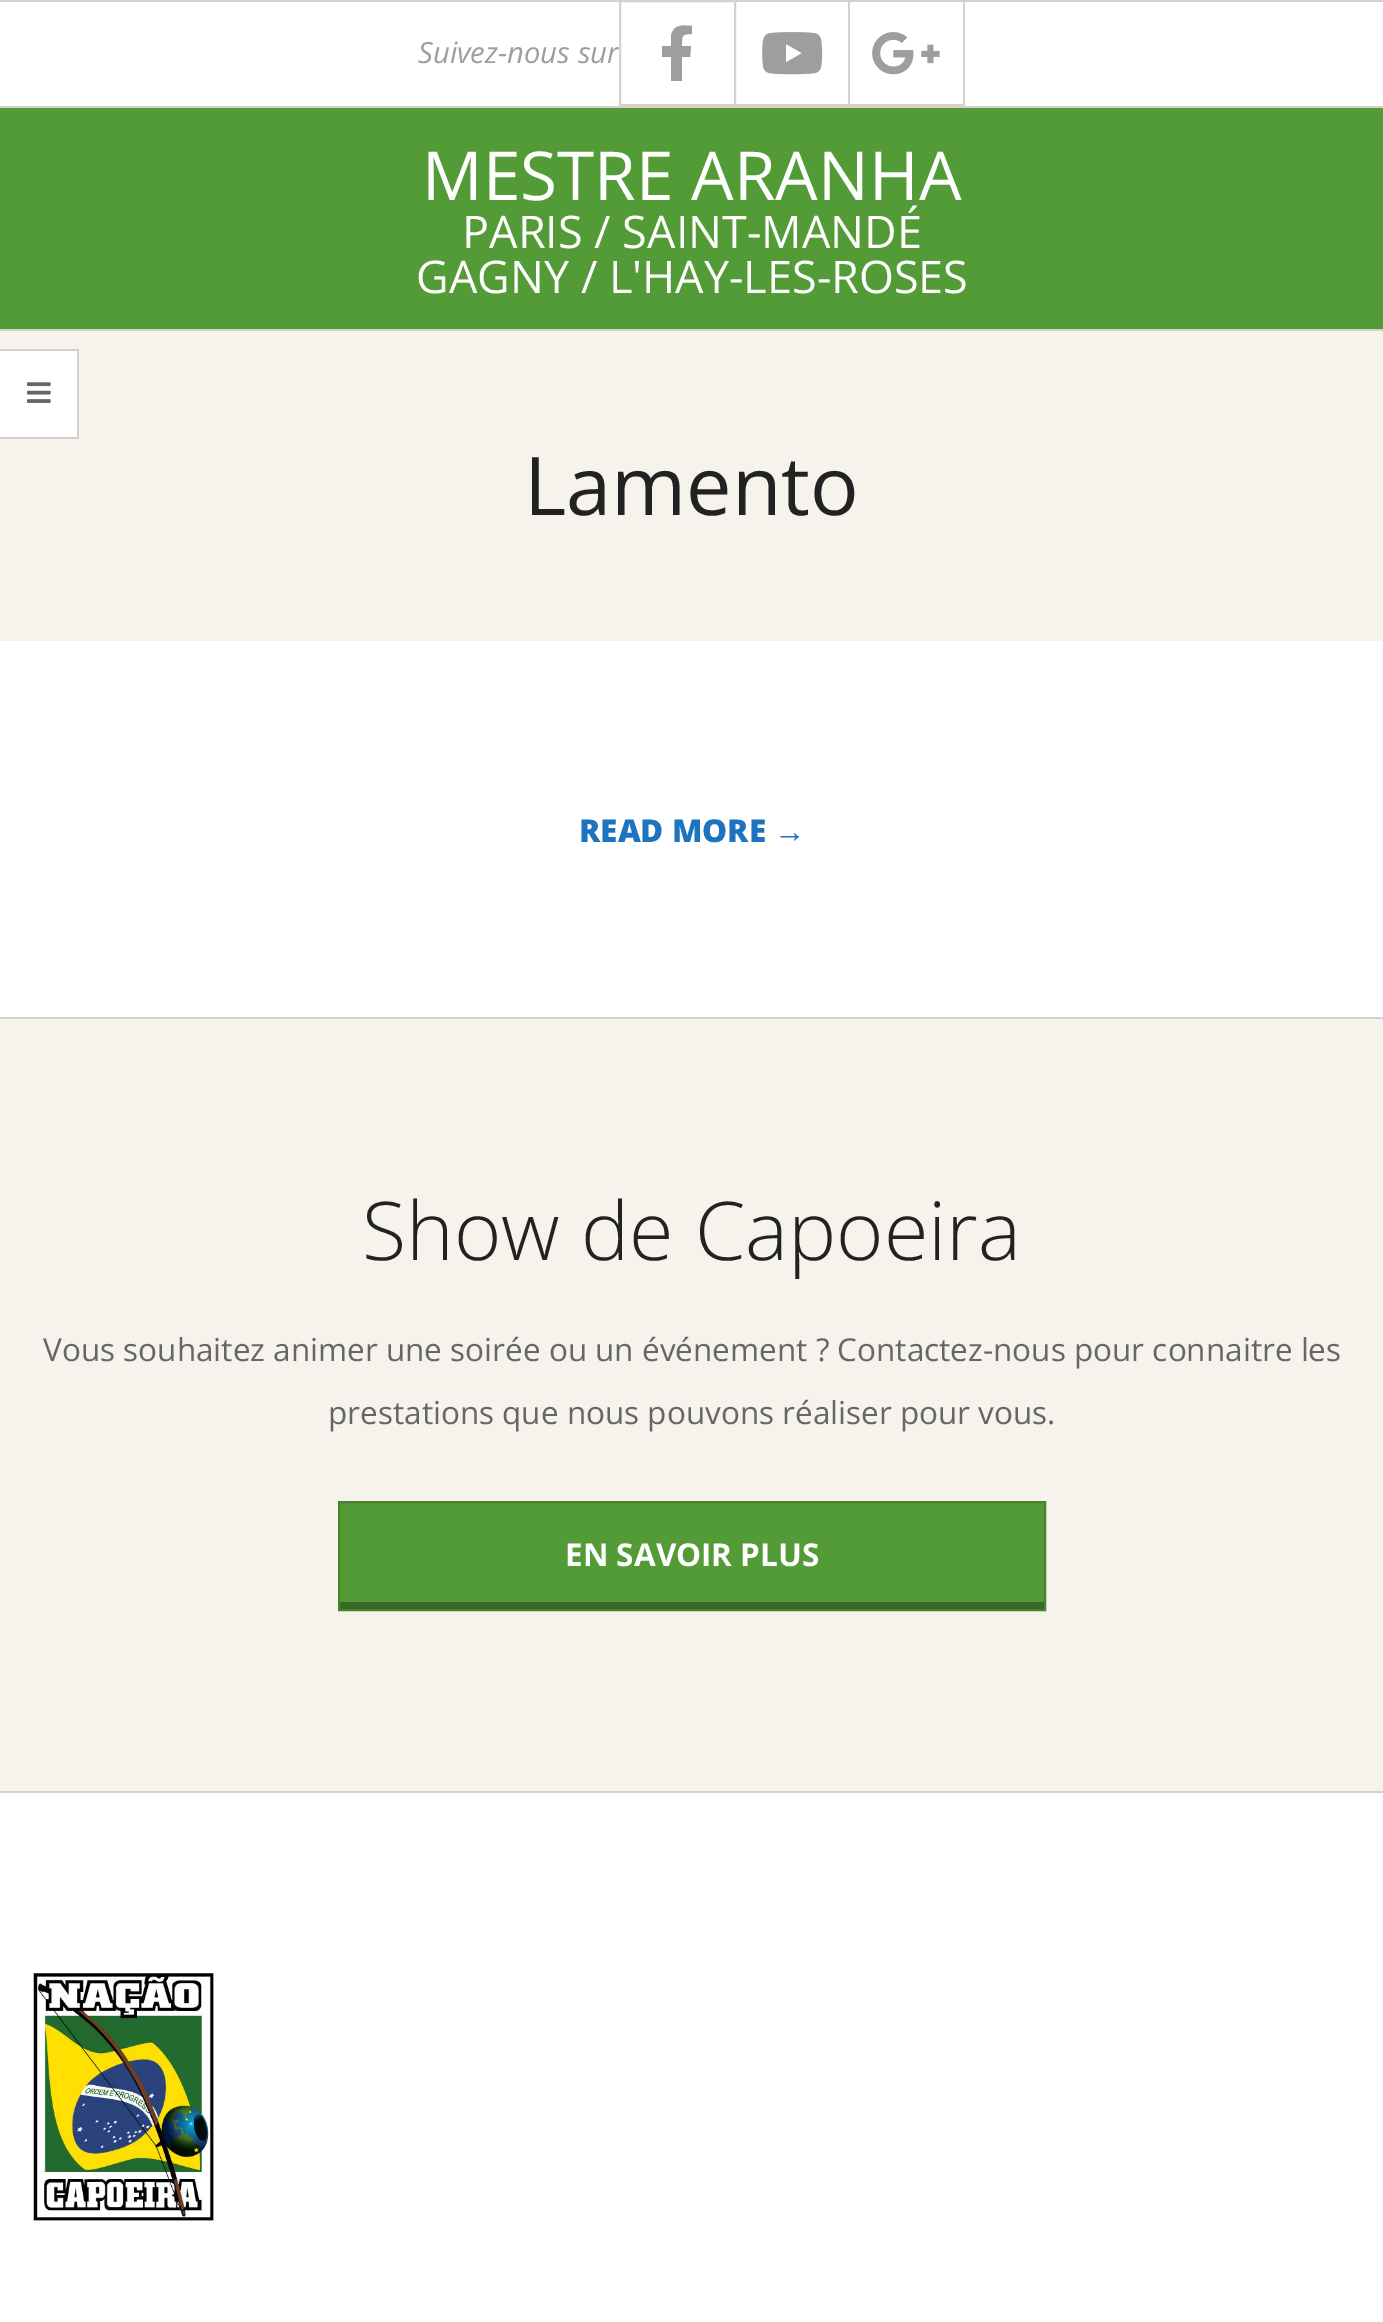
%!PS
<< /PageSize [1383 2322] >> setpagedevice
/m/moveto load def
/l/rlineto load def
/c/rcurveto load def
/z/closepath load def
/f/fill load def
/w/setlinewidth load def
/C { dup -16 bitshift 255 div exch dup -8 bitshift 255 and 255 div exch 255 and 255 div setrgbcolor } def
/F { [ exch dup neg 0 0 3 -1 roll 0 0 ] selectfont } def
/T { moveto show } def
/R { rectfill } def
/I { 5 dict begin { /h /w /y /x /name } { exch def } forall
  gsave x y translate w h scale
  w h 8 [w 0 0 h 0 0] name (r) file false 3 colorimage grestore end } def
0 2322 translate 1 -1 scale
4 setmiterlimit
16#FFFFFF C
0 0 1383 2322 R
16#D5D2CD C
0 0 1383 2 R
/OpenSans-Italic 29.25 F
16#9E9E9E C
(Suivez-nous sur) 418 63 T
16#D5D2CD C
2 w
620 1 115 104 rectstroke
16#9E9E9E C
690 57 m -8 0 l 0 24 l -11 0 l 0 -24 l -9 0 l 0 -11 l 9 0 l 0 -10 l 2 -12 12 -11 21 -10 c 0 8 l -11 0 -10 2 -10 12 c 9 0 l z f
16#D5D2CD C
848 0 2 106 R
736 104 115 2 R
(1.rgb) 762 32 61 43 I
963 0 2 106 R
851 104 114 2 R
(2.rgb) 872 32 68 43 I
0 106 1383 2 R
0 329 1383 2 R
16#539B36 C
0 108 1383 221 R
/OpenSans-Regular 67.5 F
16#FFFFFF C
(MESTRE ARANHA) 422 200 T
/OpenSans-Regular 45 F
(PARIS / SAINT-MANDÉ) 462 248 T
(GAGNY / L'HAY-LES-ROSES) 416 293 T
16#F6F3ED C
0 331 1383 310 R
16#FFFFFF C
0 351 77 86 R
16#D5D2CD C
0 349 79 2 R
77 349 2 90 R
0 437 79 2 R
(3.rgb) 27 382 24 21 I
/OpenSans-Regular 81 F
16#222222 C
(Lamento) 524 515 T
/OpenSans-ExtraBold 31.5 F
16#1E73BE C
(READ MORE) 579 842 T
/LiberationSans-Bold 31.5 F
(→) 774 842 T
16#F6F3ED C
0 1019 1383 772 R
16#D5D2CD C
0 1017 1383 2 R
/OpenSans-Light 81 F
16#222222 C
(Show de Capoeira) 362 1260 T
/OpenSans-Regular 31.5 F
16#666666 C
(Vous souhaitez animer une soirée ou un événement ? Contactez-nous pour connaitre les) 43 1361 T
(prestations que nous pouvons réaliser pour vous.) 328 1424 T
16#539B36 C
340 1503 704 99 R
16#386824 C
340 1602 704 7 R
16#47842E C
339 1502 706 108 rectstroke
/OpenSans-Bold 31.5 F
16#FFFFFF C
(EN SAVOIR PLUS) 565 1566 T
16#D5D2CD C
0 1791 1383 2 R
(4.rgb) 33 1973 181 248 I
showpage
